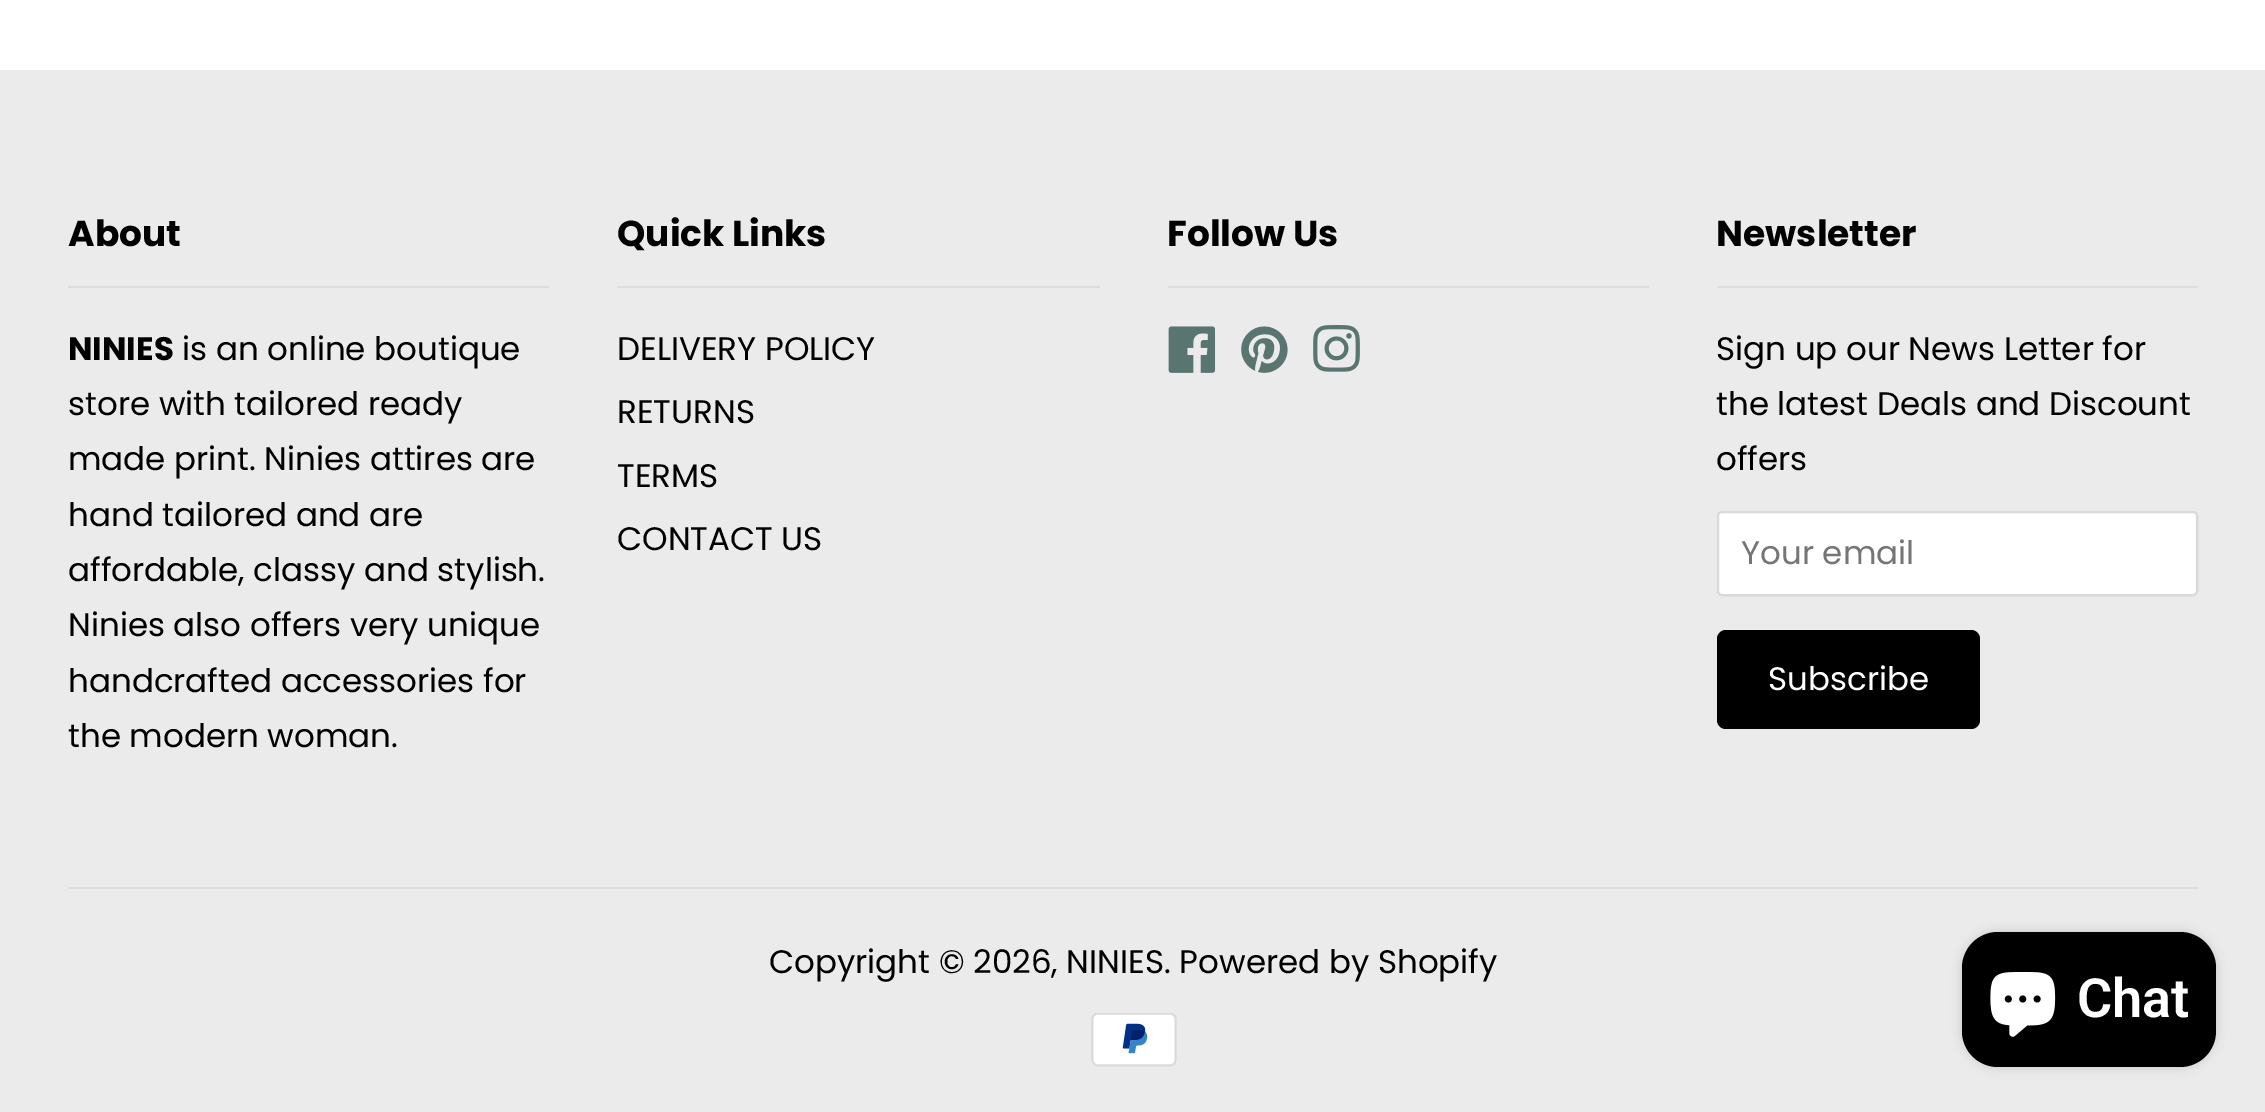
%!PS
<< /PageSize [2265 1112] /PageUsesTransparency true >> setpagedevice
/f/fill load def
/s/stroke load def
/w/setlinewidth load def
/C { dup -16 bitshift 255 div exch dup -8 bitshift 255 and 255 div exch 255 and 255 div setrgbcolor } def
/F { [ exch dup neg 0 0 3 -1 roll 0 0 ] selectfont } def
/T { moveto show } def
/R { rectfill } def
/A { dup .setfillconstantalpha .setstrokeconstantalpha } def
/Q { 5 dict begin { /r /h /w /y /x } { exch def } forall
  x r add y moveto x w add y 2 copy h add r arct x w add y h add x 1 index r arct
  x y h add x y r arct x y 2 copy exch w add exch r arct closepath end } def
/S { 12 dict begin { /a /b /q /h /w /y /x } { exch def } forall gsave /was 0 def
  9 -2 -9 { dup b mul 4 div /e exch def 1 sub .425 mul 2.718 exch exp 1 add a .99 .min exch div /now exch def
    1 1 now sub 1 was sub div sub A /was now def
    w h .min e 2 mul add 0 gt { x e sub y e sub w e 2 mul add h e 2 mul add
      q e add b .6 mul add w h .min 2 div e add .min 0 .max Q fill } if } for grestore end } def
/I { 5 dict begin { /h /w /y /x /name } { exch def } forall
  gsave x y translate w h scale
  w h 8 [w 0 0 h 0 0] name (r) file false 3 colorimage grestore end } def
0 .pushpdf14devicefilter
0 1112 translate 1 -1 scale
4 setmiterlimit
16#FFFFFF C
0 0 2265 1112 R
16#EBEBEB C
0 70 2265 1042 R
16#DDDDDD C
68 286 481 2 R
/Poppins-Bold 36 F
16#000000 C
(About) 68 246 T
/Poppins-Bold 32.5 F
(NINIES) 68 360 T
/Poppins-Regular 32.5 F
(is an online boutique) 182 360 T
(store with tailored ready) 68 415 T
(made print. Ninies attires are) 68 470 T
(hand tailored and are) 68 526 T
(affordable, classy and stylish.) 68 581 T
(Ninies also offers very unique) 68 636 T
(handcrafted accessories for) 68 692 T
(the modern woman.) 68 747 T
16#DDDDDD C
617 286 483 2 R
/Poppins-Bold 36 F
16#000000 C
(Quick Links) 617 246 T
/Poppins-Regular 32.5 F
(DELIVERY POLICY) 617 360 T
(RETURNS) 617 423 T
(TERMS) 617 487 T
(CONTACT US) 617 550 T
16#DDDDDD C
1168 286 481 2 R
/Poppins-Bold 36 F
16#000000 C
(Follow Us) 1167 246 T
(1.rgb) 1168 326 48 47 I
(2.rgb) 1241 326 47 47 I
(3.rgb) 1313 325 47 47 I
16#DDDDDD C
1717 286 481 2 R
16#000000 C
(Newsletter) 1716 246 T
/Poppins-Regular 32.5 F
(Sign up our News Letter for) 1716 360 T
(the latest Deals and Discount) 1716 415 T
(offers) 1716 470 T
16#FFFFFF C
1717 511 481 85 5 Q f
0.15 A
16#000000 C
2 w
1718 512 479 83 4 Q s
1 A
16#757575 C
(Your email) 1741 564 T
16#000000 C
1717 630 263 99 9 Q f
16#FFFFFF C
(Subscribe) 1768 690 T
16#DDDDDD C
68 887 2130 2 R
16#000000 C
(Copyright © 2026, NINIES. Powered by Shopify) 769 973 T
(4.rgb) 1091 1013 86 54 I
1962 932 254 135 36 5.5 .15 S
1962 932 254 135 36 Q f
(5.rgb) 1990 972 66 65 I
/Roboto-SemiBold 54 F
16#FFFFFF C
(Chat) 2077 1017 T
.poppdf14devicefilter showpage
